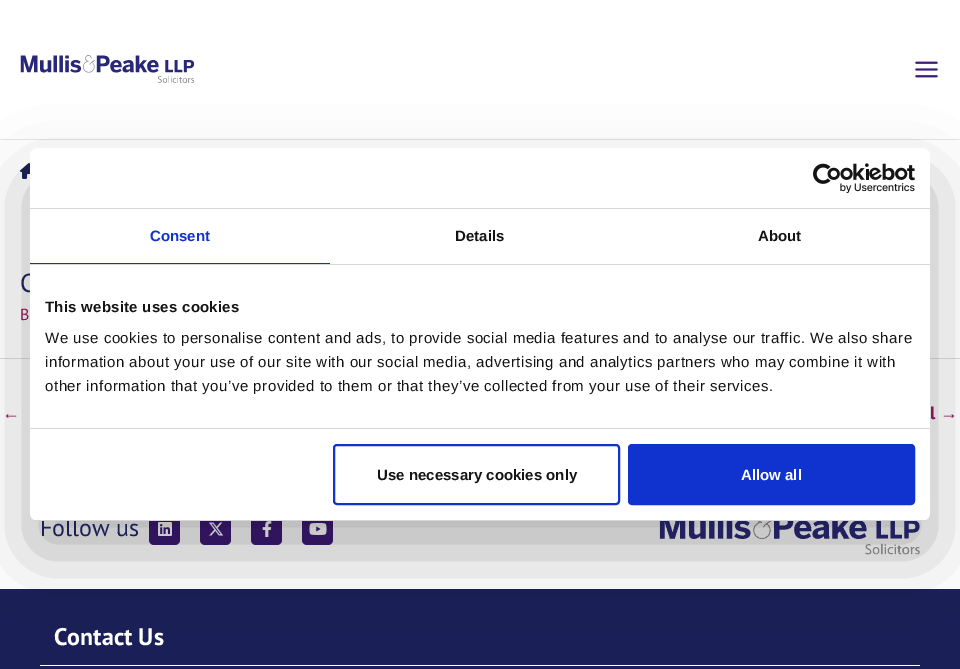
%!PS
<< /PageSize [960 669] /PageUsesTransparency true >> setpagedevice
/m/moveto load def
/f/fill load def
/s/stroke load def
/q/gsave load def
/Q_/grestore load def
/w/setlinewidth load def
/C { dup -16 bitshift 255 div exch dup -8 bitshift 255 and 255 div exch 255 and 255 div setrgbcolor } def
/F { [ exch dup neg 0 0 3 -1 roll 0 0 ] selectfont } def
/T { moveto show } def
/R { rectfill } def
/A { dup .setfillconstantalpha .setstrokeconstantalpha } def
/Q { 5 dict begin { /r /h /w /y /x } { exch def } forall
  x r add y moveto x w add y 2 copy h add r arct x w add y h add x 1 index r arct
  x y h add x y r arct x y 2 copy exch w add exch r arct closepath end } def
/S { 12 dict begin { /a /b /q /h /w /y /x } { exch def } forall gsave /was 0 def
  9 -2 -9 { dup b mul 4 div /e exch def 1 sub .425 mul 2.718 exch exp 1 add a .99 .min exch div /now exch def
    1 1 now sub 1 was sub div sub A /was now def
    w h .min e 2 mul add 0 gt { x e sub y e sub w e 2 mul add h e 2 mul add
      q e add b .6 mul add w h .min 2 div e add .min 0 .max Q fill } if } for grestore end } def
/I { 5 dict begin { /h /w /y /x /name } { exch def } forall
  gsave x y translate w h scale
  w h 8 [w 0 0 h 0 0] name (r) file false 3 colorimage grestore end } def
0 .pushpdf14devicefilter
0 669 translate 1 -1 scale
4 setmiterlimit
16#FFFFFF C
0 0 960 669 R
16#E5E5E5 C
0 139 960 1 R
(2.rgb) 20 55 175 28 I
(3.rgb) 915 61 23 17 I
(4.rgb) 20 163 10 16 I
16#DDDDDD C
0 358 960 1 R
16#3E1A76 C
149 513 31 32 5 Q f
(5.rgb) 158 522 14 14 I
200 513 31 32 5 Q f
(6.rgb) 209 522 15 14 I
251 513 31 32 5 Q f
(7.rgb) 262 521 10 16 I
302 513 31 32 5 Q f
(8.rgb) 309 523 18 12 I
(9.rgb) 659 521 261 34 I
16#1A2057 C
0 589 960 80 R
16#000000 C
30 180 900 373 8 34 .3 S
/PTSans-Regular 26 F
16#1A2057 C
(C) 20 292 T
/PTSans-Regular 24 F
(Follow us) 40 536 T
16#FFFFFF C
30 148 900 373 8 Q f
16#D6D6D6 C
30 208 900 1 R
(1.rgb) 813 163 102 30 I
30 264 900 1 R
16#1032CF C
30 263 300 1 R
/LiberationSans-Bold 15 F
(Consent) 150 241 T
16#141414 C
(Details) 455 241 T
(About) 758 241 T
16#D6D6D6 C
30 428 900 1 R
16#141414 C
45 312 m .25 0 (This website uses cookies) ashow
/LiberationSans-Regular 15 F
45 343 m .5 0 (We use cookies to personalise content and ads, to provide social media features and to analyse our traffic. We also share) ashow
45 367 m .5 0 (information about your use of our site with our social media, advertising and analytics partners who may combine it with) ashow
45 391 m .5 0 (other information that you’ve provided to them or that they’ve collected from your use of their services.) ashow
q
30 148 900 373 8 Q clip newpath
16#D6D6D6 C
30 520 900 1 R
Q_
16#1032CF C
2 w
334 445 285 59 3 Q s
/LiberationSans-Bold 15 F
16#141414 C
(Use necessary cookies only) 377 480 T
16#1032CF C
629 445 285 59 3 Q q f Q_
s
16#FFFFFF C
(Allow all) 741 480 T
/PTSans-Regular 16 F
16#891453 C
(B) 20 320 T
/LiberationSans-Bold 18 F
(←) 2 419 T
/PTSans-Bold 18 F
(l) 930 419 T
/LiberationSans-Bold 18 F
(→) 940 419 T
16#FFFFFF C
40 665 880 1 R
/PTSans-Bold 24 F
(Contact Us) 54 645 T
.poppdf14devicefilter showpage
